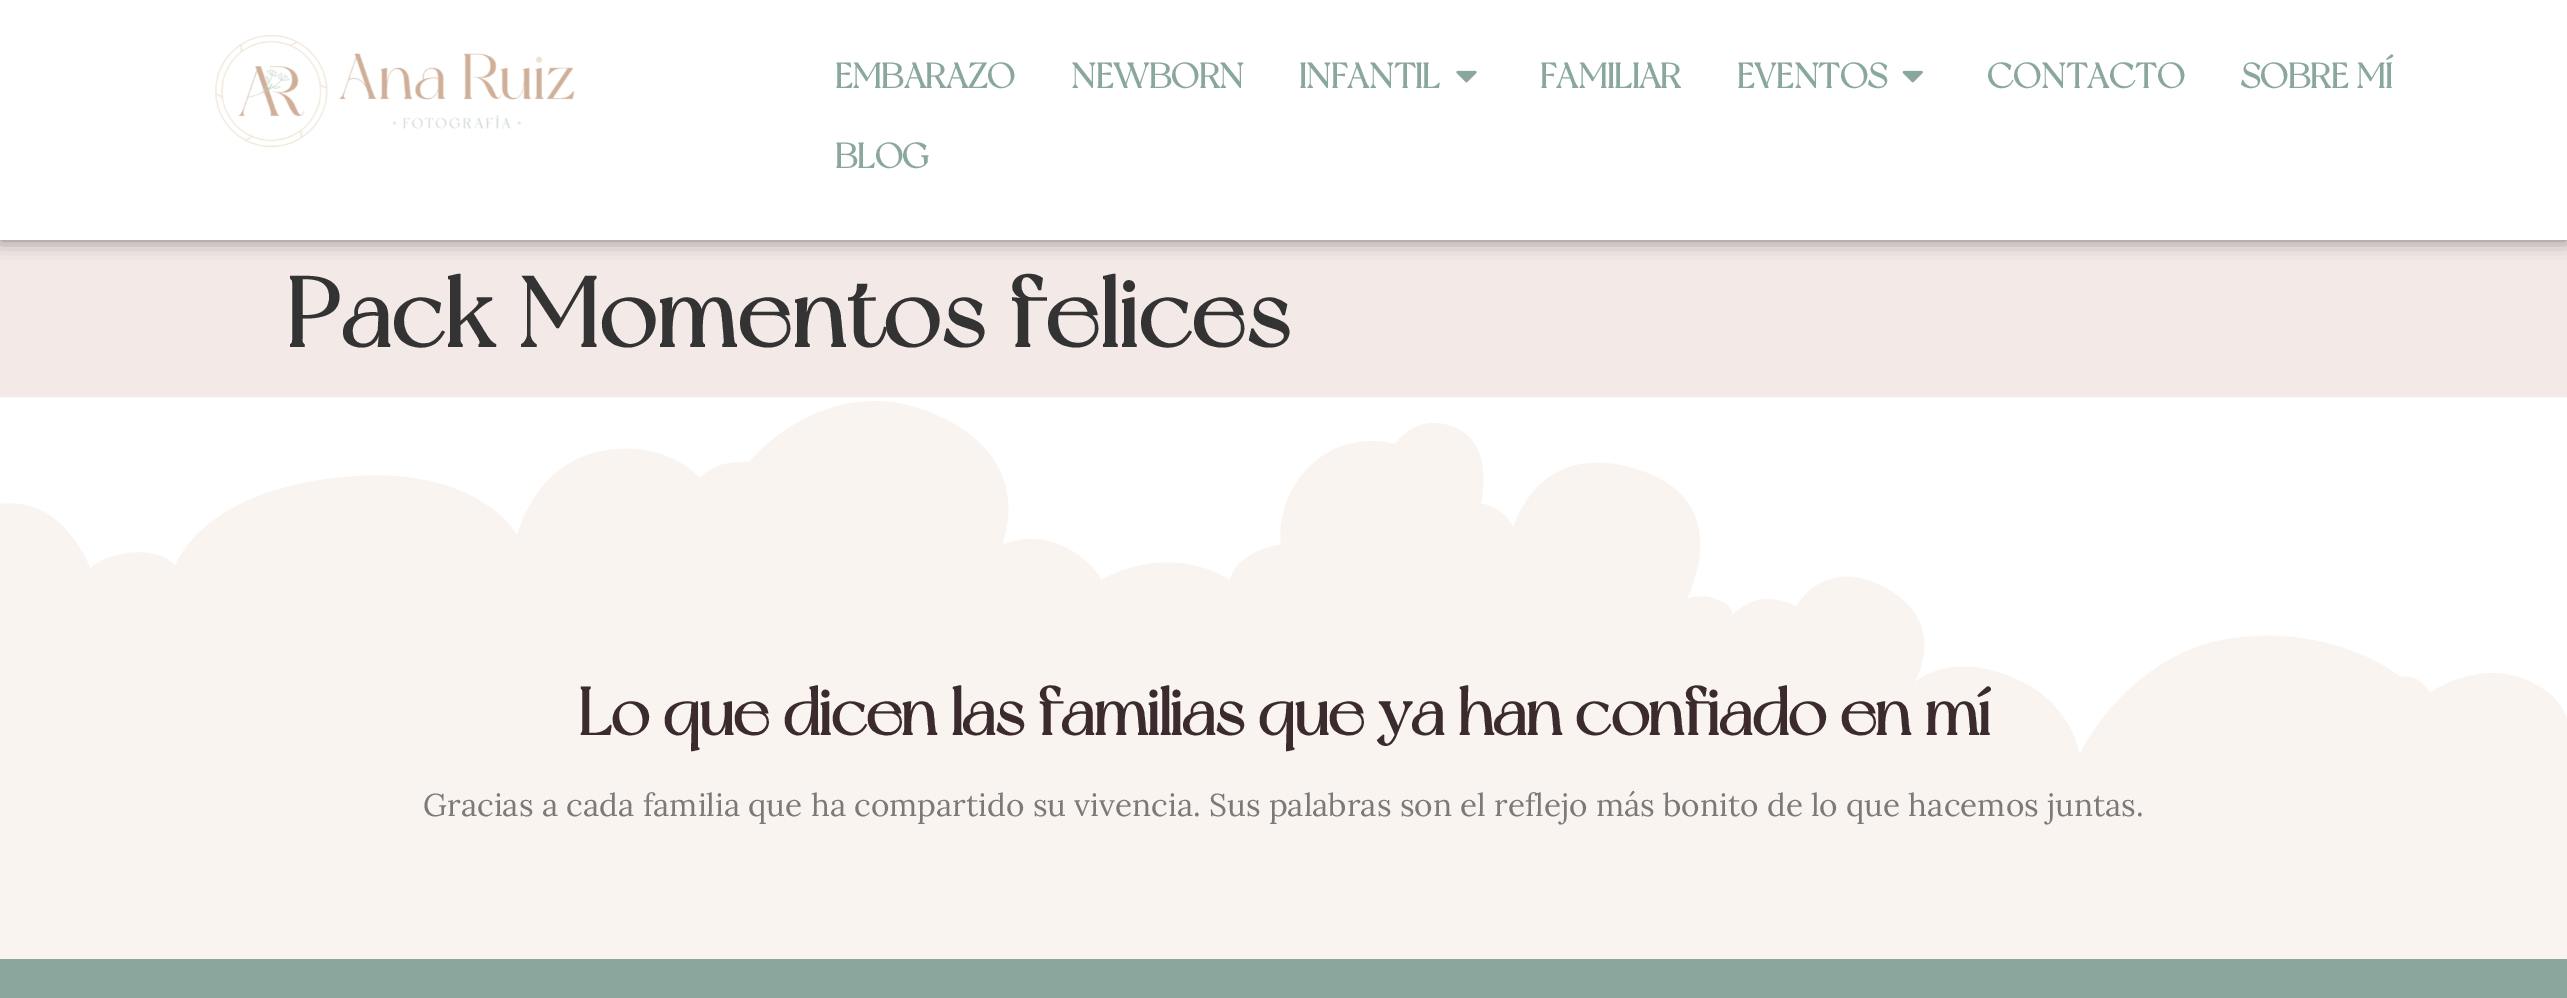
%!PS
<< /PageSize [2567 998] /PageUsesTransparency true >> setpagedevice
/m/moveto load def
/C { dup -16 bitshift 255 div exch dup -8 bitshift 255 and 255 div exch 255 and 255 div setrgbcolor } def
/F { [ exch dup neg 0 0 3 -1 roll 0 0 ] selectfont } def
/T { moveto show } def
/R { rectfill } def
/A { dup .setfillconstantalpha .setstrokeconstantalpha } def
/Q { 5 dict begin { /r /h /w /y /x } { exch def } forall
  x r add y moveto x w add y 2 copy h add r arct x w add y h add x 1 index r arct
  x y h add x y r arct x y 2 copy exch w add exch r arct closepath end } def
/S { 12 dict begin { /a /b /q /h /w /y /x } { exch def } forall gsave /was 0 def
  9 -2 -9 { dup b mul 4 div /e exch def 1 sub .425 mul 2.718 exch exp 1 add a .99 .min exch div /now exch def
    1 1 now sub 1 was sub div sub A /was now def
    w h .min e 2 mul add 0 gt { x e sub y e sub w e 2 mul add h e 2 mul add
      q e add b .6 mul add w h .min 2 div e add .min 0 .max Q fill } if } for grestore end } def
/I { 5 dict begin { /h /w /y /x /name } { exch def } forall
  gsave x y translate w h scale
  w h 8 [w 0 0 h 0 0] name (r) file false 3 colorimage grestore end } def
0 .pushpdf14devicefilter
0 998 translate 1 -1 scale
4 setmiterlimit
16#F3EAE7 C
0 0 2567 998 R
16#000000 C
0 0 2567 240 0 9 .5 S
16#FFFFFF C
0 0 2567 240 R
(1.rgb) 215 35 360 113 I
/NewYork-Bold 35 F
16#8AA79E C
(EMBARAZO) 835 88 T
(NEWBORN) 1071 88 T
(INFANTIL) 1299 88 T
(2.rgb) 1456 70 21 13 I
(FAMILIAR) 1540 88 T
(EVENTOS) 1737 88 T
(3.rgb) 1902 70 21 13 I
(CONTACTO) 1987 88 T
(SOBRE MÍ) 2240 88 T
(BLOG) 835 168 T
/NewYork-Bold 98 F
16#333333 C
(Pack Momentos felices) 286 347 T
16#FAF4F1 C
0 400 2567 559 R
(4.rgb) 0 397 2567 356 I
/NewYork-Bold 66.5 F
16#3C2B2E C
578 735 m -1.4 0 (Lo que dicen las familias que ya han confiado en mí) ashow
/Lora-Regular 31.5 F
16#7A7A7A C
(Gracias a cada familia que ha compartido su vivencia. Sus palabras son el reflejo más bonito de lo que hacemos juntas.) 423 816 T
16#8AA79E C
0 959 2567 39 R
.poppdf14devicefilter showpage
